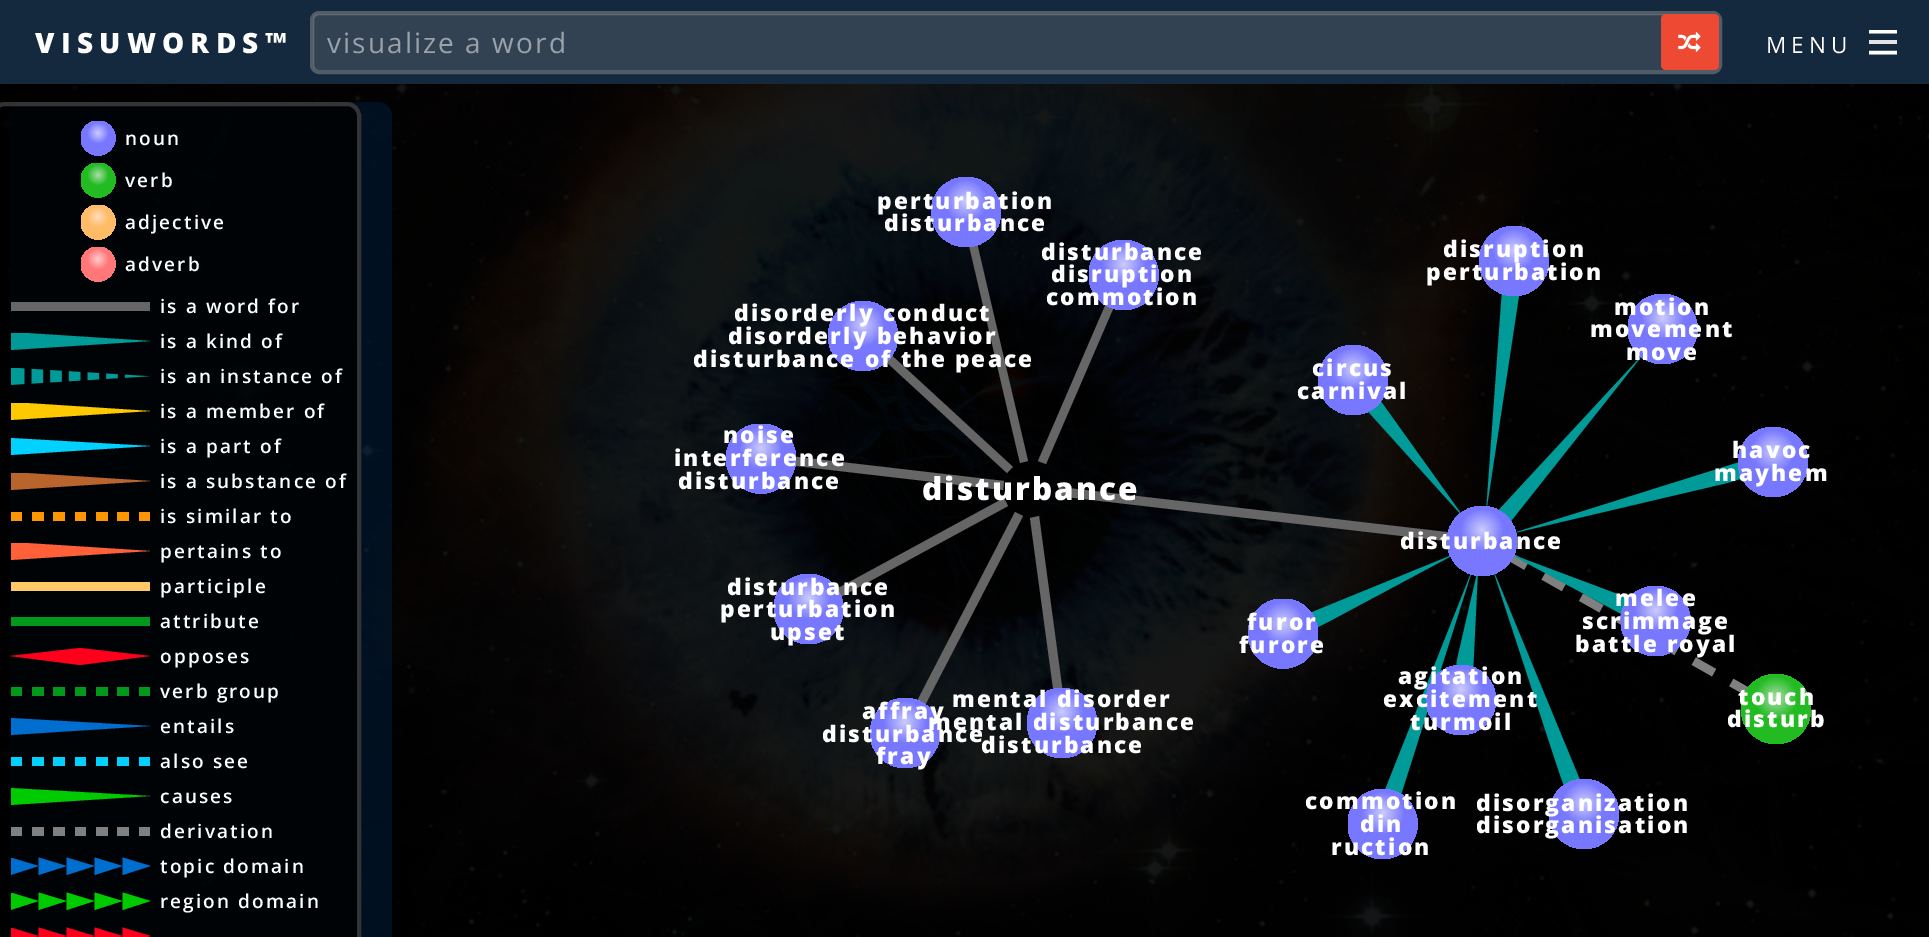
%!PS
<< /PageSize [1929 937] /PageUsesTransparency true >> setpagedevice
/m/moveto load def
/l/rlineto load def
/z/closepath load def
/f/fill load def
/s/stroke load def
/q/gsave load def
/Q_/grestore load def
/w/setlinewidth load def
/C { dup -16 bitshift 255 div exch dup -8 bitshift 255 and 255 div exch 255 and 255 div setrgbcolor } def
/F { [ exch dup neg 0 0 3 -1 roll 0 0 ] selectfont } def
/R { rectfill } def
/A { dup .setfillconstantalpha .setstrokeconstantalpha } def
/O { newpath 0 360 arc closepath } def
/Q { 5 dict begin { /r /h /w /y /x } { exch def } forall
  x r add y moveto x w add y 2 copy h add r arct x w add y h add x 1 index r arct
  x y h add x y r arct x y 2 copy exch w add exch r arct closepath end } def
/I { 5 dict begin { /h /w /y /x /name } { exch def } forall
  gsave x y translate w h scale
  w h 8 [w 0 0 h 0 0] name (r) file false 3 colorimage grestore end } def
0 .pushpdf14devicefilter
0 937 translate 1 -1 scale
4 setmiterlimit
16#FFFFFF C
0 0 1929 937 R
(1.rgb) 0 84 1929 853 I
16#14283E C
0 0 1929 84 R
/OpenSans-ExtraBold 28 F
16#FFFFFF C
35 53 m 6.25 0 (VISUWORDS™) ashow
16#525C67 C
4 w
312 13 1408 59 7 Q s
0.25 A
16#909090 C
313 14 1406 56 5 Q f
/OpenSans-Regular 28 F
1 A
16#99A1A9 C
327 53 m 2.1 0 (visualize a word) ashow
16#ED4933 C
1661 14 58 56 5 Q f
(2.rgb) 1678 32 23 20 I
/OpenSans-Regular 22.5 F
16#FFFFFF C
1766 53 m 5 0 (MENU) ashow
q
1869 30 28 28 rectclip
3.5 w
1869 31.5 m 28 0 l s
Q_
16#E2E4E7 C
1869 40 28 4 R
16#FFFFFF C
3.5 w
1869 52.5 m 28 0 l s
0.3 A
16#003264 C
9 102 383 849 14 Q f
0.8 A
16#000000 C
-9 102 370 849 14 Q f
0.5 A
16#646464 C
4 w
-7 104 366 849 12 Q s
q
81 121 35 35 rectclip
1 A
q 98 138 17.5 O clip newpath 98 133 translate 11 11 scale
<< /ShadingType 3 /ColorSpace /DeviceRGB /Coords [0 0 0 0 0 1] /Extend [true true] /Function << /FunctionType 2 /Domain [0 1] /C0 [.8 .8 1] /C1 [.467 .467 1] /N 1 >> >> shfill Q_
Q_
/OpenSans-SemiBold 19 F
1 A
16#FFFFFF C
125 145 m 2.1 0 (noun) ashow
q
81 163 35 35 rectclip
q 98 180 17.5 O clip newpath 98 175 translate 11 11 scale
<< /ShadingType 3 /ColorSpace /DeviceRGB /Coords [0 0 0 0 0 1] /Extend [true true] /Function << /FunctionType 2 /Domain [0 1] /C0 [.667 .867 .667] /C1 [.133 .733 .133] /N 1 >> >> shfill Q_
Q_
125 187 m 2.1 0 (verb) ashow
q
81 205 35 35 rectclip
q 98 222 17.5 O clip newpath 98 217 translate 11 11 scale
<< /ShadingType 3 /ColorSpace /DeviceRGB /Coords [0 0 0 0 0 1] /Extend [true true] /Function << /FunctionType 2 /Domain [0 1] /C0 [1 .867 .733] /C1 [1 .733 .4] /N 1 >> >> shfill Q_
Q_
125 229 m 2.1 0 (adjective) ashow
q
81 247 35 35 rectclip
q 98 264 17.5 O clip newpath 98 259 translate 11 11 scale
<< /ShadingType 3 /ColorSpace /DeviceRGB /Coords [0 0 0 0 0 1] /Extend [true true] /Function << /FunctionType 2 /Domain [0 1] /C0 [1 .8 .8] /C1 [1 .467 .467] /N 1 >> >> shfill Q_
Q_
125 271 m 2.1 0 (adverb) ashow
16#666666 C
11 302 139 9 R
16#FFFFFF C
160 313 m 2.1 0 (is a word for) ashow
q
11 333 140 17 rectclip
16#009B99 C
10 332 m 0 18 l 140 -9 l z f
Q_
160 348 m 2.1 0 (is a kind of) ashow
(3.rgb) 11 368 139 17 I
160 383 m 2.1 0 (is an instance of) ashow
q
11 403 140 17 rectclip
16#FFC900 C
10 402 m 0 18 l 140 -9 l z f
Q_
160 418 m 2.1 0 (is a member of) ashow
q
11 438 140 17 rectclip
16#00D1FF C
10 438 m 0 17 l 140 -9 l z f
Q_
160 453 m 2.1 0 (is a part of) ashow
q
11 473 140 17 rectclip
16#B9642C C
10 472 m 0 18 l 140 -9 l z f
Q_
160 488 m 2.1 0 (is a substance of) ashow
16#FF9600 C
11 512 11 9 R
32 512 12 9 R
53 512 12 9 R
75 512 11 9 R
96 512 12 9 R
117 512 12 9 R
139 512 11 9 R
16#FFFFFF C
160 523 m 2.1 0 (is similar to) ashow
q
11 543 140 17 rectclip
16#FF6038 C
10 542 m 0 18 l 140 -9 l z f
Q_
160 558 m 2.1 0 (pertains to) ashow
16#FFC966 C
11 582 139 9 R
16#FFFFFF C
160 593 m 2.1 0 (participle) ashow
16#00991A C
11 617 139 9 R
16#FFFFFF C
160 628 m 2.1 0 (attribute) ashow
16#FF001C C
80 648 m -70 8 l 70 9 l 70 -9 l z f
16#FFFFFF C
160 663 m 2.1 0 (opposes) ashow
16#00991A C
11 687 11 9 R
32 687 12 9 R
53 687 12 9 R
75 687 11 9 R
96 687 12 9 R
117 687 12 9 R
139 687 11 9 R
16#FFFFFF C
160 698 m 2.1 0 (verb group) ashow
q
11 718 140 17 rectclip
16#006ECF C
10 718 m 0 17 l 140 -9 l z f
Q_
160 733 m 2.1 0 (entails) ashow
16#00D1FF C
11 757 11 9 R
32 757 12 9 R
53 757 12 9 R
75 757 11 9 R
96 757 12 9 R
117 757 12 9 R
139 757 11 9 R
16#FFFFFF C
160 768 m 2.1 0 (also see) ashow
q
11 788 140 17 rectclip
16#00CB00 C
10 788 m 0 17 l 140 -9 l z f
Q_
160 803 m 2.1 0 (causes) ashow
16#808080 C
11 827 11 9 R
32 827 12 9 R
53 827 12 9 R
75 827 11 9 R
96 827 12 9 R
117 827 12 9 R
139 827 11 9 R
16#FFFFFF C
160 838 m 2.1 0 (derivation) ashow
q
11 858 140 17 rectclip
16#006ECF C
10.5 857.5 m 0 17.5 l 28 -9 l z f
Q_
16#006ECF C
38.5 857.5 m 0 17.5 l 28 -9 l z f
66.5 857.5 m 0 17.5 l 28 -9 l z f
94.5 857.5 m 0 17.5 l 28 -9 l z f
122.5 857.5 m 0 17.5 l 28 -9 l z f
16#FFFFFF C
160 873 m 2.1 0 (topic domain) ashow
q
11 893 140 17 rectclip
16#00CB00 C
10.5 892.5 m 0 17.5 l 28 -9 l z f
Q_
16#00CB00 C
38.5 892.5 m 0 17.5 l 28 -9 l z f
66.5 892.5 m 0 17.5 l 28 -9 l z f
94.5 892.5 m 0 17.5 l 28 -9 l z f
122.5 892.5 m 0 17.5 l 28 -9 l z f
16#FFFFFF C
160 908 m 2.1 0 (region domain) ashow
q
11 928 140 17 rectclip
16#FF001C C
10.5 927.5 m 0 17.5 l 28 -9 l z f
Q_
16#FF001C C
38.5 927.5 m 0 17.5 l 28 -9 l z f
66.5 927.5 m 0 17.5 l 28 -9 l z f
94.5 927.5 m 0 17.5 l 28 -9 l z f
122.5 927.5 m 0 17.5 l 28 -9 l z f
16#666666 C
1028 461 m -52 -222 l -8 2 l 52 222 l z f
q 966 212 35 O clip newpath 966 201 translate 22 22 scale
<< /ShadingType 3 /ColorSpace /DeviceRGB /Coords [0 0 0 0 0 1] /Extend [true true] /Function << /FunctionType 2 /Domain [0 1] /C0 [.8 .8 1] /C1 [.467 .467 1] /N 1 >> >> shfill Q_
/OpenSans-ExtraBold 22.75 F
16#FFFFFF C
877 209 m 2.1 0 (perturbation) ashow
884 231 m 2.1 0 (disturbance) ashow
16#666666 C
1038 461 m 8 3 l 70 -162 l -8 -3 l z f
q
1089 240 70 70 rectclip
q 1123.5 275 35 O clip newpath 1124 264 translate 22 22 scale
<< /ShadingType 3 /ColorSpace /DeviceRGB /Coords [0 0 0 0 0 1] /Extend [true true] /Function << /FunctionType 2 /Domain [0 1] /C0 [.8 .8 1] /C1 [.467 .467 1] /N 1 >> >> shfill Q_
Q_
16#FFFFFF C
1041 260 m 2.1 0 (disturbance) ashow
1051 282 m 2.1 0 (disruption) ashow
1046 305 m 2.1 0 (commotion) ashow
16#009B99 C
1511 521 m 134 -169 l -150 162 l 12 11 l z f
1502 291 m -16 222 l 32 -211 l 2 -12 l -18 -2 l z f
q 1514 261 35 O clip newpath 1514 250 translate 22 22 scale
<< /ShadingType 3 /ColorSpace /DeviceRGB /Coords [0 0 0 0 0 1] /Extend [true true] /Function << /FunctionType 2 /Domain [0 1] /C0 [.8 .8 1] /C1 [.467 .467 1] /N 1 >> >> shfill Q_
16#FFFFFF C
1443 257 m 2.1 0 (disruption) ashow
1426 280 m 2.1 0 (perturbation) ashow
16#666666 C
1003 490 m -215 -25 l 1 -9 l 215 25 l z f
1007 473 m -125 -115 l 6 -6 l 125 115 l z f
q 863 336 35 O clip newpath 863 325 translate 22 22 scale
<< /ShadingType 3 /ColorSpace /DeviceRGB /Coords [0 0 0 0 0 1] /Extend [true true] /Function << /FunctionType 2 /Domain [0 1] /C0 [.8 .8 1] /C1 [.467 .467 1] /N 1 >> >> shfill Q_
16#FFFFFF C
734 321 m 2.1 0 (disorderly conduct) ashow
728 344 m 2.1 0 (disorderly behavior) ashow
693 367 m 2.1 0 (disturbance of the peace) ashow
q
1628 294 70 70 rectclip
q 1662.5 329 35 O clip newpath 1663 318 translate 22 22 scale
<< /ShadingType 3 /ColorSpace /DeviceRGB /Coords [0 0 0 0 0 1] /Extend [true true] /Function << /FunctionType 2 /Domain [0 1] /C0 [.8 .8 1] /C1 [.467 .467 1] /N 1 >> >> shfill Q_
Q_
1614 315 m 2.1 0 (motion) ashow
1590 337 m 2.1 0 (movement) ashow
1626 360 m 2.1 0 (move) ashow
16#666666 C
1058 496 m 396 46 l 1 -9 l -396 -46 l z f
16#009B99 C
1377 396 m 88 123 l -101 -112 l z f
q 1353 380 35 O clip newpath 1353 369 translate 22 22 scale
<< /ShadingType 3 /ColorSpace /DeviceRGB /Coords [0 0 0 0 0 1] /Extend [true true] /Function << /FunctionType 2 /Domain [0 1] /C0 [.8 .8 1] /C1 [.467 .467 1] /N 1 >> >> shfill Q_
16#FFFFFF C
1312 376 m 2.1 0 (circus) ashow
1297 399 m 2.1 0 (carnival) ashow
q
726 424 70 70 rectclip
q 761 458.5 35 O clip newpath 761 448 translate 22 22 scale
<< /ShadingType 3 /ColorSpace /DeviceRGB /Coords [0 0 0 0 0 1] /Extend [true true] /Function << /FunctionType 2 /Domain [0 1] /C0 [.8 .8 1] /C1 [.467 .467 1] /N 1 >> >> shfill Q_
Q_
723 443 m 2.1 0 (noise) ashow
674 466 m 2.1 0 (interference) ashow
678 489 m 2.1 0 (disturbance) ashow
16#666666 C
1023 516 m -101 195 l -8 -4 l 101 -195 l z f
1008 506 m -173 94 l -4 -8 l 173 -94 l z f
/OpenSans-ExtraBold 31.5 F
16#FFFFFF C
922 500 m 2.1 0 (disturbance) ashow
16#009B99 C
1747 477 m -20 6 l -217 51 l 233 -73 l z f
q 1773 462 35 O clip newpath 1773 451 translate 22 22 scale
<< /ShadingType 3 /ColorSpace /DeviceRGB /Coords [0 0 0 0 0 1] /Extend [true true] /Function << /FunctionType 2 /Domain [0 1] /C0 [.8 .8 1] /C1 [.467 .467 1] /N 1 >> >> shfill Q_
/OpenSans-ExtraBold 22.75 F
16#FFFFFF C
1732 458 m 2.1 0 (havoc) ashow
1714 481 m 2.1 0 (mayhem) ashow
16#666666 C
1039 516 m 24 178 l -9 1 l -24 -177 l z f
16#009B99 C
1399 801 m 74 -233 l -90 227 l z f
1305 615 m 7 15 l 16 -8 l 129 -69 l z f
(4.rgb) 1510 554 239 141 I
1582 785 m -90 -218 l 67 205 l 7 19 l 13 -5 l z f
1627 617 m 8 -16 l -7 -3 l -120 -45 l z f
1456 670 m 17 3 l 5 -104 l -21 91 l z f
q 1482 541 35 O clip newpath 1482 530 translate 22 22 scale
<< /ShadingType 3 /ColorSpace /DeviceRGB /Coords [0 0 0 0 0 1] /Extend [true true] /Function << /FunctionType 2 /Domain [0 1] /C0 [.8 .8 1] /C1 [.467 .467 1] /N 1 >> >> shfill Q_
16#FFFFFF C
1400 549 m 2.1 0 (disturbance) ashow
q
774 574 70 70 rectclip
q 808.5 609 35 O clip newpath 809 598 translate 22 22 scale
<< /ShadingType 3 /ColorSpace /DeviceRGB /Coords [0 0 0 0 0 1] /Extend [true true] /Function << /FunctionType 2 /Domain [0 1] /C0 [.8 .8 1] /C1 [.467 .467 1] /N 1 >> >> shfill Q_
Q_
727 595 m 2.1 0 (disturbance) ashow
720 617 m 2.1 0 (perturbation) ashow
770 640 m 2.1 0 (upset) ashow
q
1248 599 70 70 rectclip
q 1283 633.5 35 O clip newpath 1283 623 translate 22 22 scale
<< /ShadingType 3 /ColorSpace /DeviceRGB /Coords [0 0 0 0 0 1] /Extend [true true] /Function << /FunctionType 2 /Domain [0 1] /C0 [.8 .8 1] /C1 [.467 .467 1] /N 1 >> >> shfill Q_
Q_
1247 630 m 2.1 0 (furor) ashow
1239 653 m 2.1 0 (furore) ashow
q
1621 586 70 70 rectclip
q 1655.5 621 35 O clip newpath 1656 610 translate 22 22 scale
<< /ShadingType 3 /ColorSpace /DeviceRGB /Coords [0 0 0 0 0 1] /Extend [true true] /Function << /FunctionType 2 /Domain [0 1] /C0 [.8 .8 1] /C1 [.467 .467 1] /N 1 >> >> shfill Q_
Q_
1615 606 m 2.1 0 (melee) ashow
1582 629 m 2.1 0 (scrimmage) ashow
1575 652 m 2.1 0 (battle royal) ashow
q 905 733 35 O clip newpath 905 722 translate 22 22 scale
<< /ShadingType 3 /ColorSpace /DeviceRGB /Coords [0 0 0 0 0 1] /Extend [true true] /Function << /FunctionType 2 /Domain [0 1] /C0 [.8 .8 1] /C1 [.467 .467 1] /N 1 >> >> shfill Q_
862 719 m 2.1 0 (affray) ashow
822 742 m 2.1 0 (disturbance) ashow
876 764 m 2.1 0 (fray) ashow
q 1062 723 35 O clip newpath 1062 712 translate 22 22 scale
<< /ShadingType 3 /ColorSpace /DeviceRGB /Coords [0 0 0 0 0 1] /Extend [true true] /Function << /FunctionType 2 /Domain [0 1] /C0 [.8 .8 1] /C1 [.467 .467 1] /N 1 >> >> shfill Q_
952 707 m 2.1 0 (mental disorder) ashow
928 730 m 2.1 0 (mental disturbance) ashow
981 753 m 2.1 0 (disturbance) ashow
q 1461 700 35 O clip newpath 1461 689 translate 22 22 scale
<< /ShadingType 3 /ColorSpace /DeviceRGB /Coords [0 0 0 0 0 1] /Extend [true true] /Function << /FunctionType 2 /Domain [0 1] /C0 [.8 .8 1] /C1 [.467 .467 1] /N 1 >> >> shfill Q_
1398 684 m 2.1 0 (agitation) ashow
1383 707 m 2.1 0 (excitement) ashow
1410 730 m 2.1 0 (turmoil) ashow
q 1776 709 35 O clip newpath 1776 698 translate 22 22 scale
<< /ShadingType 3 /ColorSpace /DeviceRGB /Coords [0 0 0 0 0 1] /Extend [true true] /Function << /FunctionType 2 /Domain [0 1] /C0 [.667 .867 .667] /C1 [.133 .733 .133] /N 1 >> >> shfill Q_
1738 705 m 2.1 0 (touch) ashow
1727 727 m 2.1 0 (disturb) ashow
q
1348 789 70 70 rectclip
q 1382.5 824 35 O clip newpath 1383 813 translate 22 22 scale
<< /ShadingType 3 /ColorSpace /DeviceRGB /Coords [0 0 0 0 0 1] /Extend [true true] /Function << /FunctionType 2 /Domain [0 1] /C0 [.8 .8 1] /C1 [.467 .467 1] /N 1 >> >> shfill Q_
Q_
1305 809 m 2.1 0 (commotion) ashow
1360 832 m 2.1 0 (din) ashow
1331 855 m 2.1 0 (ruction) ashow
q 1584 814 35 O clip newpath 1584 803 translate 22 22 scale
<< /ShadingType 3 /ColorSpace /DeviceRGB /Coords [0 0 0 0 0 1] /Extend [true true] /Function << /FunctionType 2 /Domain [0 1] /C0 [.8 .8 1] /C1 [.467 .467 1] /N 1 >> >> shfill Q_
1476 811 m 2.1 0 (disorganization) ashow
1476 833 m 2.1 0 (disorganisation) ashow
.poppdf14devicefilter showpage
